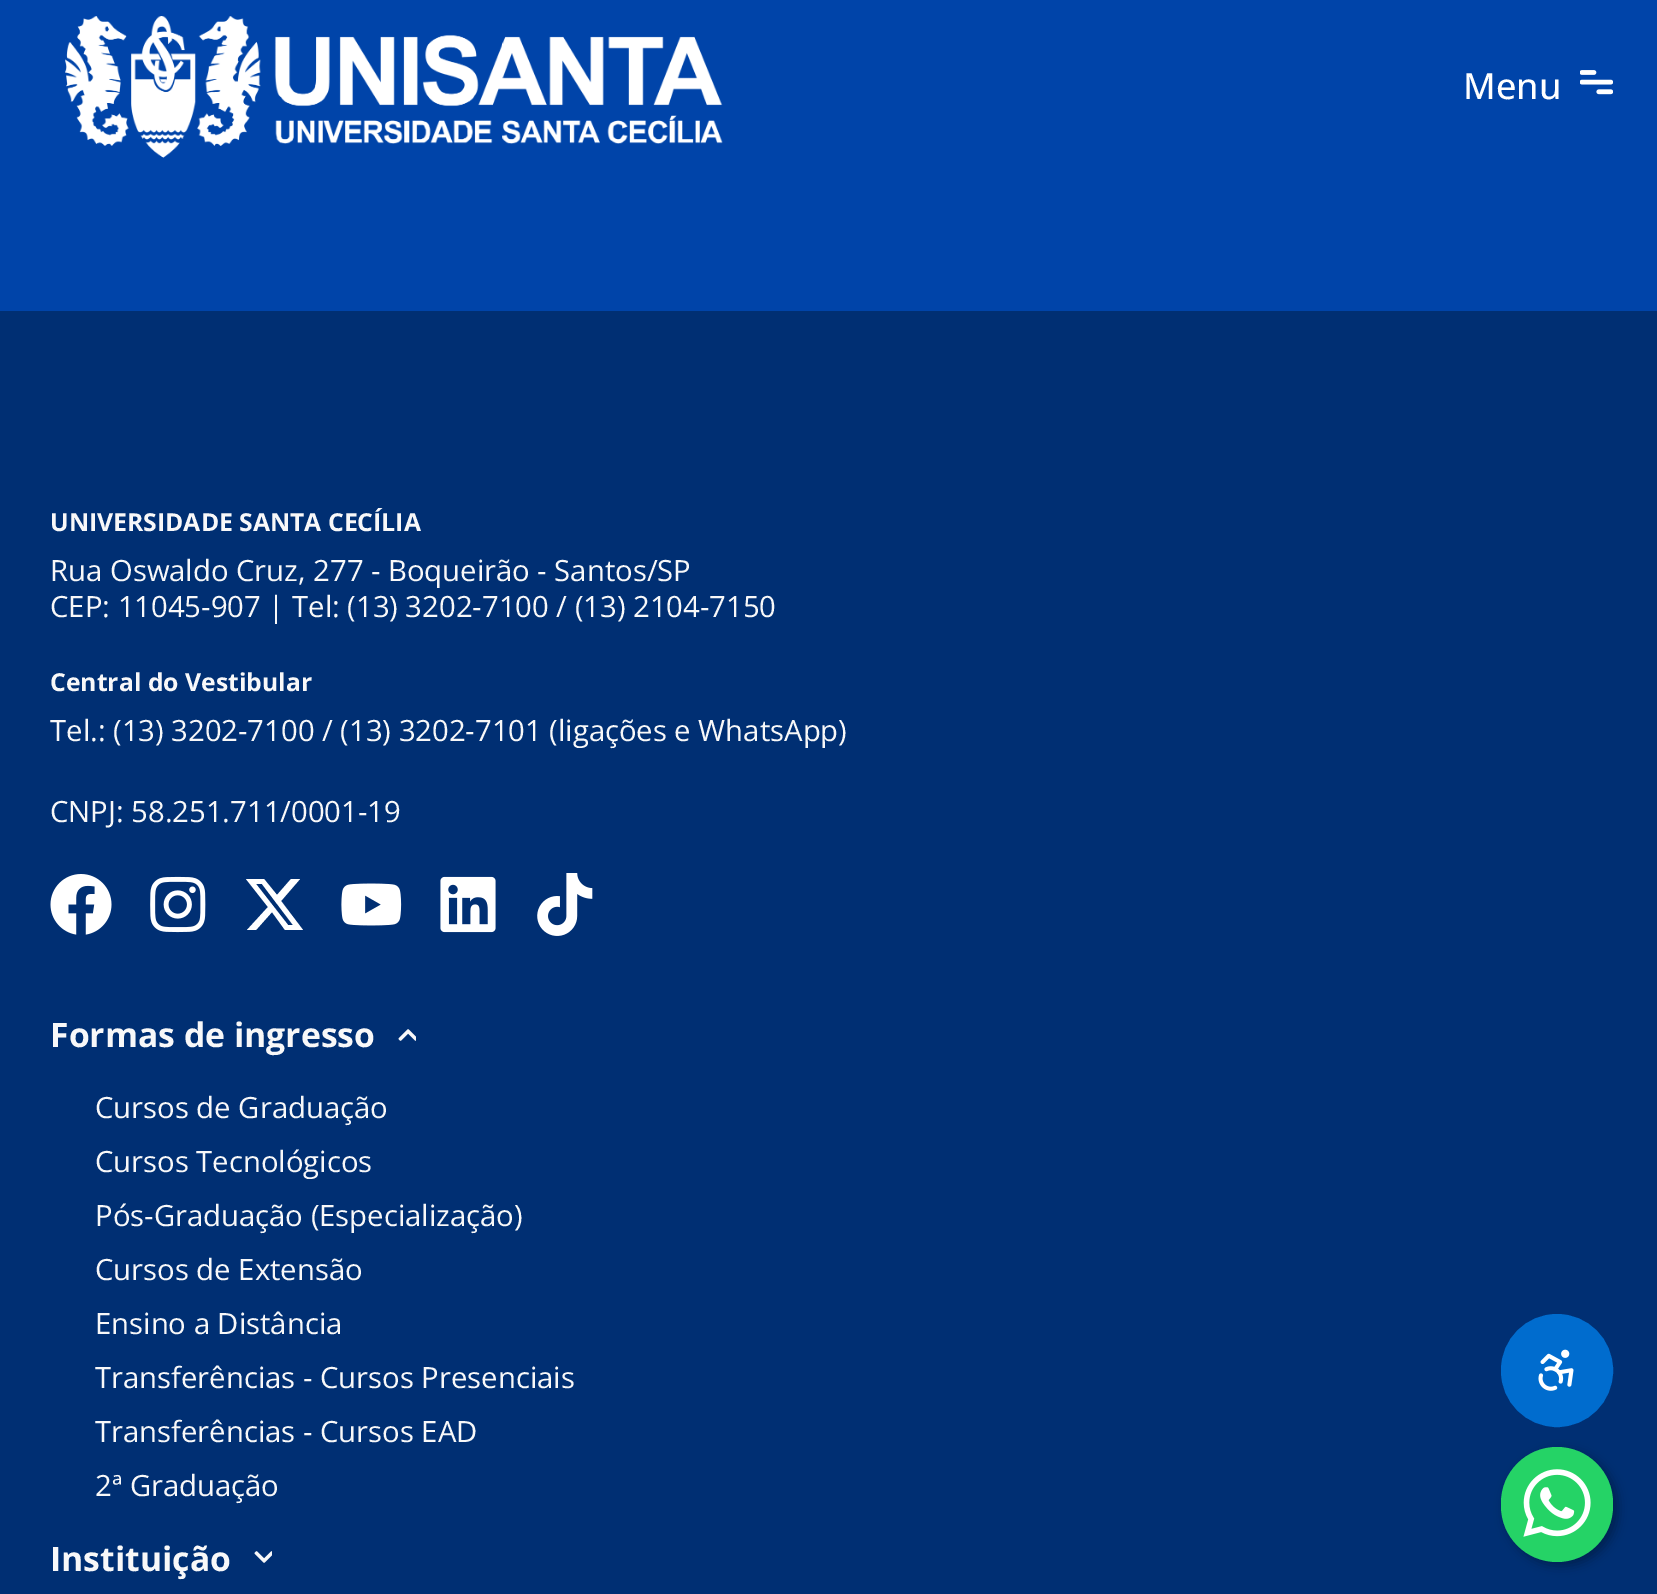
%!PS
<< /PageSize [1657 1594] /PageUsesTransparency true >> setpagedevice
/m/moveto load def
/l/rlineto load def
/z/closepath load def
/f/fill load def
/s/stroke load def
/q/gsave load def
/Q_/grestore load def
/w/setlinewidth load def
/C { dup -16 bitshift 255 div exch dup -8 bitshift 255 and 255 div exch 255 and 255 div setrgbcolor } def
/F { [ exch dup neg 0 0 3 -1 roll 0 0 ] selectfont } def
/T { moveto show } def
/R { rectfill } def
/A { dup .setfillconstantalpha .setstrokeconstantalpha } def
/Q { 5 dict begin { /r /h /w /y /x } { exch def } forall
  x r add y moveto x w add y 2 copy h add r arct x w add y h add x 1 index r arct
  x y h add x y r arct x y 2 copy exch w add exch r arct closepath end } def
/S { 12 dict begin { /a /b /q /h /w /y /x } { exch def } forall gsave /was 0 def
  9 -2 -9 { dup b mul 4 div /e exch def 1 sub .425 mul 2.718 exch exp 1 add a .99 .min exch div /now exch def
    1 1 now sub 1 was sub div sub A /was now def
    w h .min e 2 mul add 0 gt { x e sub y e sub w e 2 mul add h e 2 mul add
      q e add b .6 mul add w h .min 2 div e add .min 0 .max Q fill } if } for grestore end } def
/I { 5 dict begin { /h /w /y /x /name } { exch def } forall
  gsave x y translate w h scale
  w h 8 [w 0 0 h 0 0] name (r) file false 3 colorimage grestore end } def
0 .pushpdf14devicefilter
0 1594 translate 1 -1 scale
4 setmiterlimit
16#0044A9 C
0 0 1657 1594 R
(1.rgb) 65 16 658 142 I
/OpenSans-Medium 36 F
16#FFFFFF C
(Menu) 1463 99 T
(2.rgb) 1580 70 33 25 I
16#002F73 C
0 311 1657 1283 R
/OpenSans-Bold 24.75 F
16#F8F8F9 C
(UNIVERSIDADE SANTA CECÍLIA) 50 531 T
/OpenSans-Regular 29.25 F
(Rua Oswaldo Cruz, 277 - Boqueirão - Santos/SP) 50 581 T
(CEP: 11045-907 | Tel: \(13\) 3202-7100 / \(13\) 2104-7150) 50 617 T
/OpenSans-Bold 24.75 F
(Central do Vestibular) 50 691 T
/OpenSans-Regular 29.25 F
(Tel.: \(13\) 3202-7100 / \(13\) 3202-7101 \(ligações e WhatsApp\)) 50 741 T
(CNPJ: 58.251.711/0001-19) 50 822 T
(3.rgb) 50 874 62 61 I
(4.rgb) 150 876 56 57 I
16#FFFFFF C
291 879 m 9 0 l -19 22 l 22 29 l -18 0 l -13 -18 l -16 18 l -9 0 l 21 -23 l -22 -28 l 18 0 l 13 16 l z 288 925 m 5 0 l -31 -41 l -6 0 l z f
(5.rgb) 341 883 61 43 I
(6.rgb) 440 876 56 57 I
(7.rgb) 537 873 56 63 I
/OpenSans-Bold 33.75 F
16#F8F8F9 C
(Formas de ingresso) 50 1047 T
(8.rgb) 398 1029 18 12 I
/OpenSans-Regular 29.25 F
(Cursos de Graduação) 95 1118 T
(Cursos Tecnológicos) 95 1172 T
(Pós-Graduação \(Especialização\)) 95 1226 T
(Cursos de Extensão) 95 1280 T
(Ensino a Distância) 95 1334 T
(Transferências - Cursos Presenciais) 95 1388 T
(Transferências - Cursos EAD) 95 1442 T
(2ª Graduação) 95 1496 T
/OpenSans-Bold 33.75 F
(Instituição) 50 1571 T
(9.rgb) 254 1551 18 12 I
16#006CCE C
1503.5 1316.5 107 108 53.5 Q q f Q_
5 w
s
(10.rgb) 1538 1349 36 42 I
16#000000 C
1505 1451 113 115 56.5 5.5 .3 S
16#25D366 C
1501 1447 112 115 56 Q f
(11.rgb) 1523 1469 68 68 I
.poppdf14devicefilter showpage
